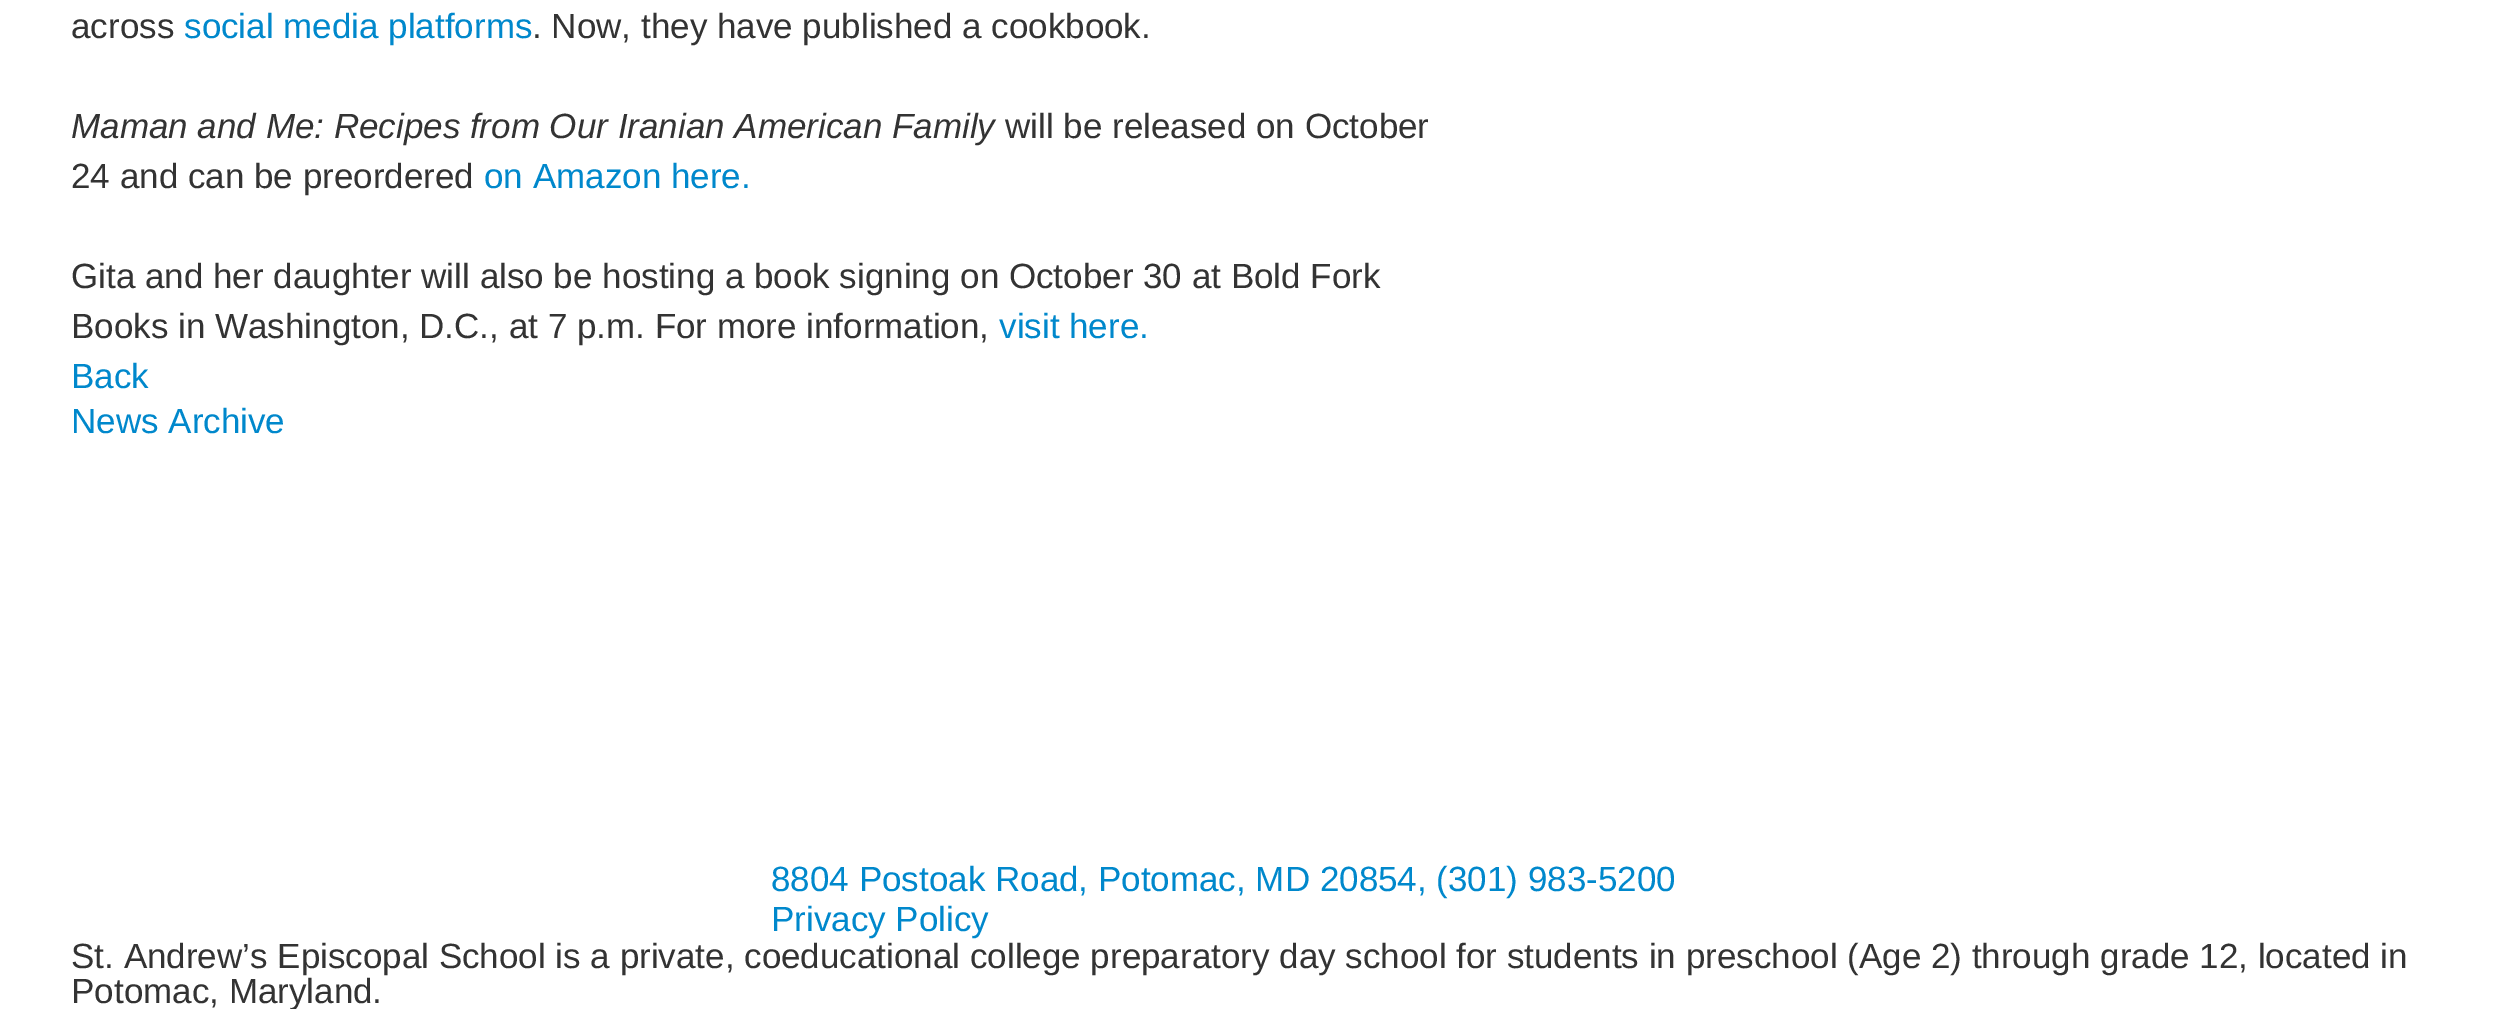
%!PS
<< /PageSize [2517 1009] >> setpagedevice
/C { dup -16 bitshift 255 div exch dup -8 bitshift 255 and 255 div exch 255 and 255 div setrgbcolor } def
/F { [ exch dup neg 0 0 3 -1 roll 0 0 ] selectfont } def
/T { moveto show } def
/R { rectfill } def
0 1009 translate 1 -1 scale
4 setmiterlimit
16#FFFFFF C
0 0 2517 1009 R
/LiberationSans-Regular 35 F
16#333333 C
(across) 71 38 T
16#0088CC C
(social media platforms) 184 38 T
16#333333 C
(. Now, they have published a cookbook.) 532 38 T
/LiberationSans-Italic 35 F
(Maman and Me: Recipes from Our Iranian American Family) 71 138 T
/LiberationSans-Regular 35 F
(will be released on October) 1005 138 T
(24 and can be preordered) 71 188 T
16#0088CC C
(on Amazon here.) 484 188 T
16#333333 C
(Gita and her daughter will also be hosting a book signing on October 30 at Bold Fork) 71 288 T
(Books in Washington, D.C., at 7 p.m. For more information,) 71 338 T
16#0088CC C
(visit here.) 999 338 T
(Back) 71 388 T
(News Archive) 71 433 T
(8804 Postoak Road, Potomac, MD 20854, \(301\) 983-5200) 771 891 T
(Privacy Policy) 771 931 T
16#333333 C
(St. Andrew’s Episcopal School is a private, coeducational college preparatory day school for students in preschool \(Age 2\) through grade 12, located in) 71 968 T
(Potomac, Maryland.) 71 1003 T
showpage
